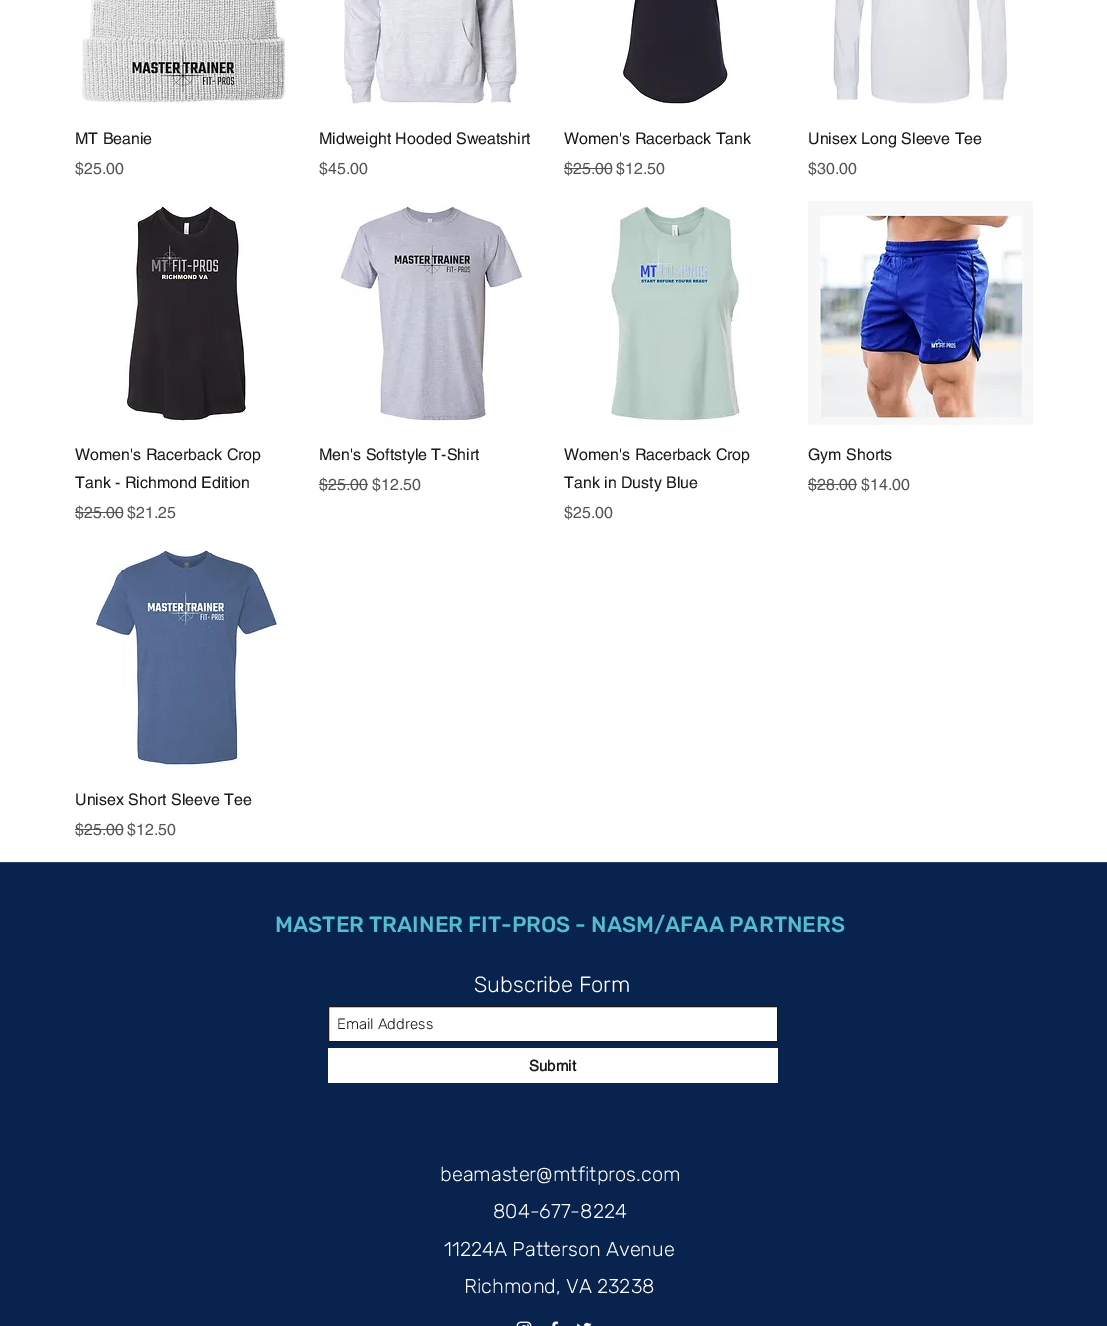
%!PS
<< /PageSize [1107 1326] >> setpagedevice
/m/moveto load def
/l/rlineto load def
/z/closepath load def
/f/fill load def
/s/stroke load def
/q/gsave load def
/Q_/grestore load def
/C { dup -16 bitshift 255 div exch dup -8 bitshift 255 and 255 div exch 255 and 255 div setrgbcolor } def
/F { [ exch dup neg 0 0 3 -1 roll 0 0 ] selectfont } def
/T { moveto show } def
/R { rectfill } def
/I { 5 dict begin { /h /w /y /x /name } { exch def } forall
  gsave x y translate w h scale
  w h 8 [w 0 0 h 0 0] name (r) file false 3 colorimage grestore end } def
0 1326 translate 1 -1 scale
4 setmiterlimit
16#FFFFFF C
0 0 1107 1326 R
(1.rgb) 82 0 204 104 I
/helvetica-Regular 16 F
16#191919 C
(MT Beanie) 75 144 T
16#535353 C
($25.00) 75 174 T
(2.rgb) 344 0 175 104 I
16#191919 C
(Midweight Hooded Sweatshirt) 319 144 T
16#535353 C
($45.00) 319 174 T
(3.rgb) 623 0 108 104 I
16#191919 C
(Women's Racerback Tank) 564 144 T
16#535353 C
($25.00) 564 174 T
564 168 48 1 R
($12.50) 616 174 T
(4.rgb) 832 0 176 104 I
16#191919 C
(Unisex Long Sleeve Tee) 808 144 T
16#535353 C
($30.00) 808 174 T
(5.rgb) 126 205 120 217 I
16#191919 C
(Women's Racerback Crop) 75 460 T
(Tank - Richmond Edition) 75 488 T
16#535353 C
($25.00) 75 518 T
75 512 48 1 R
($21.25) 127 518 T
(6.rgb) 339 205 184 220 I
16#191919 C
(Men's Softstyle T-Shirt) 319 460 T
16#535353 C
($25.00) 319 490 T
319 484 49 1 R
($12.50) 372 490 T
(7.rgb) 609 205 132 217 I
16#191919 C
(Women's Racerback Crop) 564 460 T
(Tank in Dusty Blue) 564 488 T
16#535353 C
($25.00) 564 518 T
(8.rgb) 808 201 225 224 I
16#191919 C
(Gym Shorts) 808 460 T
16#535353 C
($28.00) 808 490 T
808 484 49 1 R
($14.00) 861 490 T
(9.rgb) 91 549 188 219 I
16#191919 C
(Unisex Short Sleeve Tee) 75 805 T
16#535353 C
($25.00) 75 835 T
75 829 48 1 R
($12.50) 127 835 T
16#08234D C
0 863 1107 463 R
16#2D4468 C
0 862 1107 1 R
/Rubik-Medium 22 F
16#54BDD4 C
(MASTER TRAINER FIT-PROS - NASM/AFAA PARTNERS) 275 932 T
/Rubik-Light 22 F
16#FFFFFF C
(Subscribe Form) 474 992 T
328.5 1006.5 m 449 0 l 0 35 l -449 0 l z q f Q_
16#191919 C
s
/Rubik-Light 15 F
(Email Address) 337 1029 T
16#FFFFFF C
328 1048 450 35 R
/helvetica-Bold 15 F
16#191919 C
(Submit) 529 1071 T
/Rubik-Light 20 F
16#FFFFFF C
(beamaster@mtfitpros.com) 440 1181 T
(804-677-8224) 493 1218 T
(11224A Patterson Avenue) 444 1256 T
(Richmond, VA 23238) 464 1293 T
(10.rgb) 516 1321 16 5 I
(11.rgb) 552 1321 7 5 I
(12.rgb) 577 1322 15 4 I
showpage
